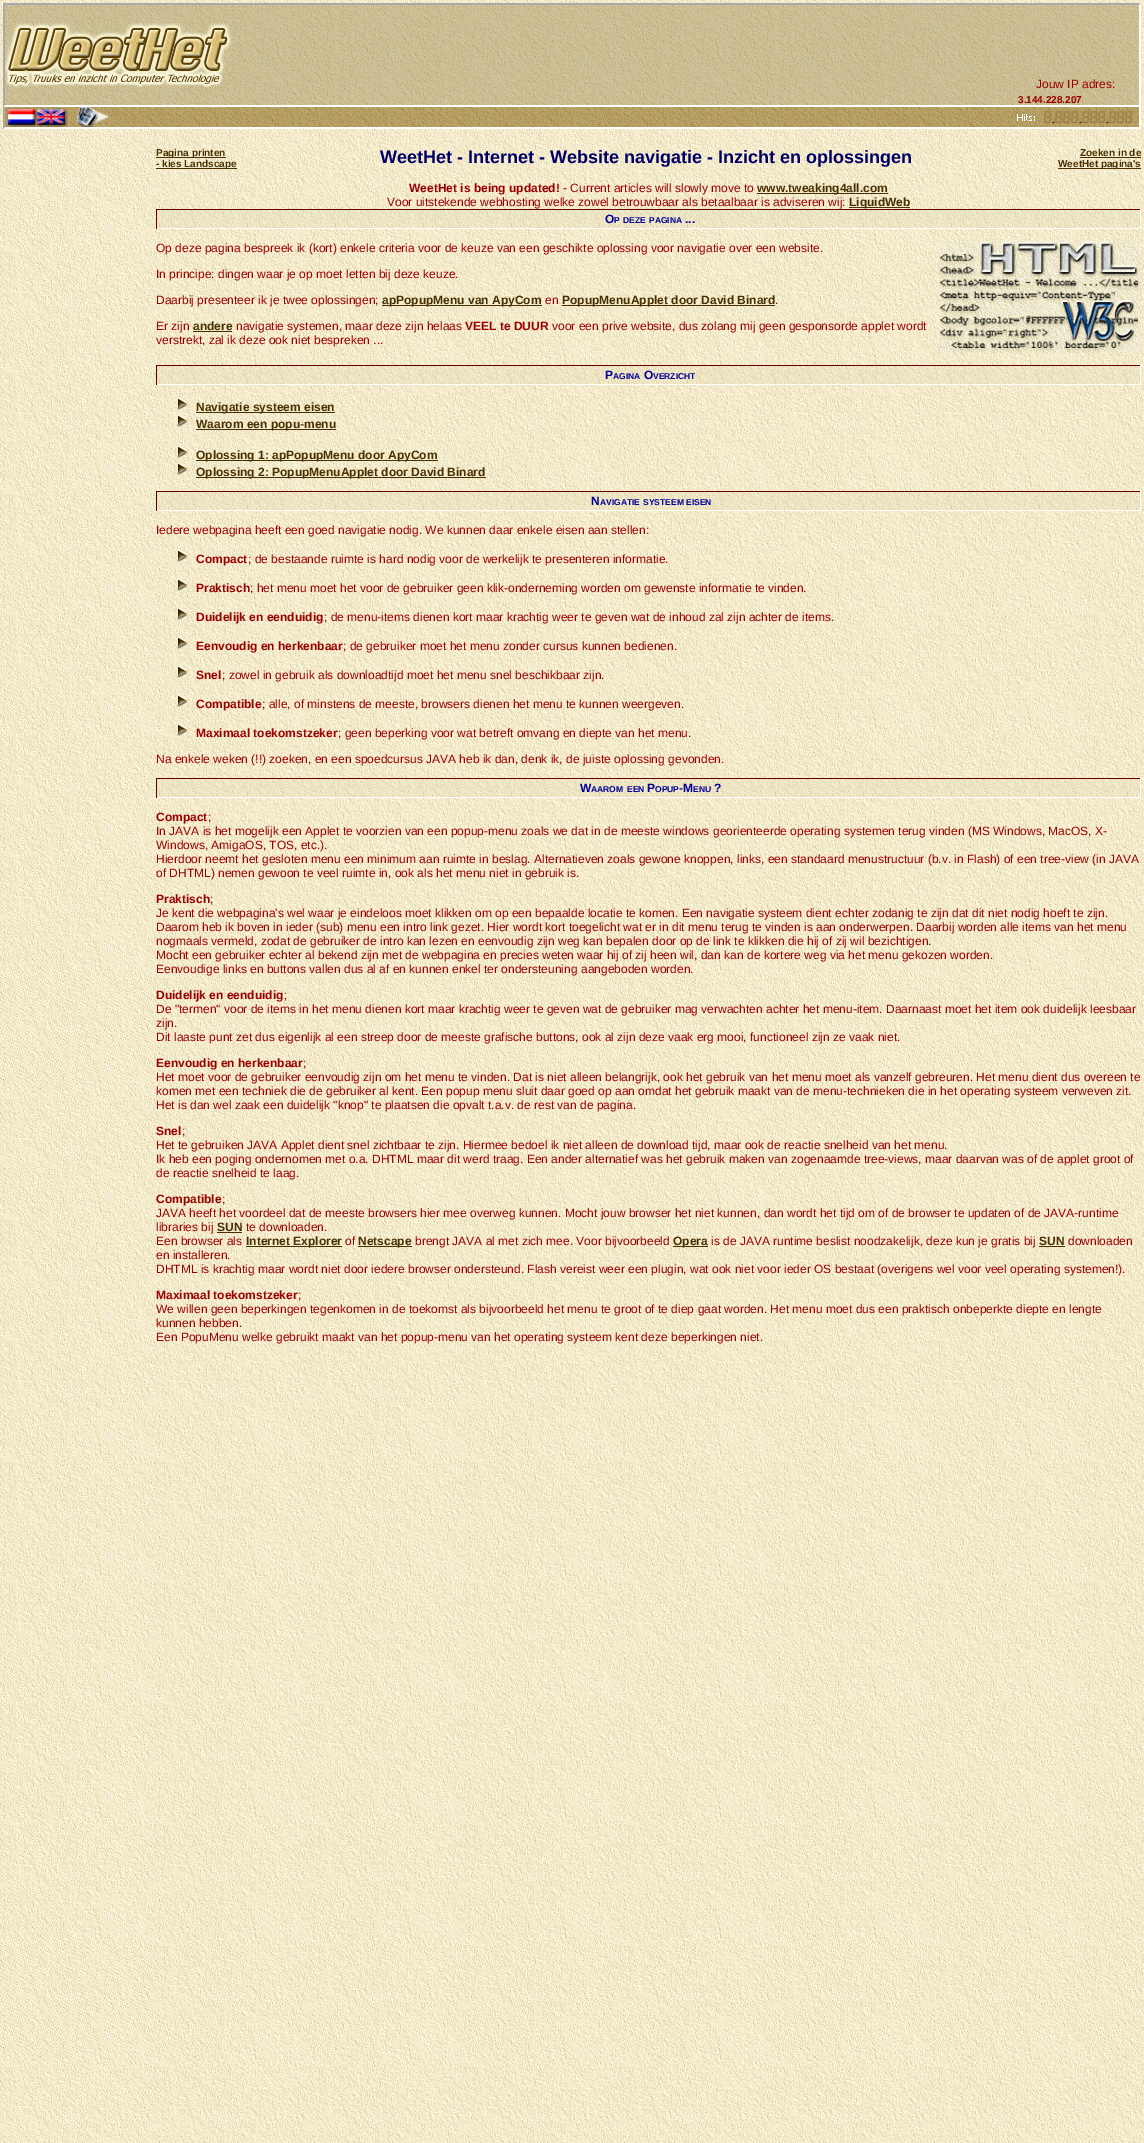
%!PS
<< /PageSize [1144 2143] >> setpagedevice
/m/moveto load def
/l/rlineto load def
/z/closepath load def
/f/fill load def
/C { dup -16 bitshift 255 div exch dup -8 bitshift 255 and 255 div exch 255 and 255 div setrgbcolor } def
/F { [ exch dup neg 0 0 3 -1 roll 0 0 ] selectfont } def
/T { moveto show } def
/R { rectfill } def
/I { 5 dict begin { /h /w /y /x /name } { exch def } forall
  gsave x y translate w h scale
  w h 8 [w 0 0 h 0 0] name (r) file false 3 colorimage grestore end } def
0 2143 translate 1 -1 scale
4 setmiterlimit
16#FFFFFF C
0 0 1144 2143 R
(1.rgb) 0 0 1144 2143 I
(2.rgb) 3 5 229 102 I
16#AAAAAA C
3 3 1009 2 R
16#FFFFFF C
232 107 m -229 0 l 2 -2 l 227 0 l z f
16#AAAAAA C
3 107 m 0 -104 l 2 2 l 0 100 l z f
(3.rgb) 5 23 227 65 I
(4.rgb) 232 5 780 100 I
16#FFFFFF C
232 105 780 2 R
(5.rgb) 1012 3 129 102 I
16#AAAAAA C
1012 3 m 129 0 l -2 2 l -127 0 l z f
16#FFFFFF C
1141 3 m 0 104 l -2 -2 l 0 -100 l z f
1012 105 129 2 R
/LiberationSans-Regular 12 F
16#990000 C
(Jouw IP adres:) 1036 88 T
(6.rgb) 1012 91 3 12 I
/LiberationSans-Bold 10 F
(3.144.228.207) 1018 103 T
(7.rgb) 3 107 108 22 I
16#FFFFFF C
111 129 m -108 0 l 2 -2 l 106 0 l z f
16#AAAAAA C
3 129 m 0 -22 l 2 0 l 0 20 l z f
(8.rgb) 5 107 104 20 I
(9.rgb) 111 107 45 20 I
16#FFFFFF C
111 127 901 2 R
(10.rgb) 156 107 76 20 I
(11.rgb) 232 107 780 20 I
(12.rgb) 1012 107 127 20 I
1139 107 2 22 R
1012 127 129 2 R
(13.rgb) 1017 113 19 9 I
(14.rgb) 1044 110 8 15 I
(15.rgb) 1052 110 3 15 I
(14.rgb) 1055 110 8 15 I
(14.rgb) 1063 110 8 15 I
(14.rgb) 1071 110 8 15 I
(15.rgb) 1079 110 3 15 I
(14.rgb) 1082 110 8 15 I
(14.rgb) 1090 110 8 15 I
(14.rgb) 1098 110 8 15 I
(15.rgb) 1106 110 3 15 I
(14.rgb) 1109 110 8 15 I
(14.rgb) 1117 110 8 15 I
(14.rgb) 1125 110 8 15 I
16#483000 C
156 157 70 1 R
(Pagina printen) 156 156 T
156 168 81 1 R
(- kies Landscape) 156 167 T
/LiberationSans-Bold 18 F
16#000066 C
(WeetHet - Internet - Website navigatie - Inzicht en oplossingen) 380 163 T
/LiberationSans-Bold 10 F
16#483000 C
(Zoeken in de) 1080 156 T
1080 157 61 1 R
1058 168 83 1 R
(WeetHet pagina's) 1058 167 T
/LiberationSans-Bold 12 F
16#990000 C
(WeetHet is being updated!) 409 192 T
/LiberationSans-Regular 12 F
(- Current articles will slowly move to) 563 192 T
16#483000 C
757 193 131 1 R
/LiberationSans-Bold 12 F
(www.tweaking4all.com) 757 192 T
/LiberationSans-Regular 12 F
16#990000 C
(Voor uitstekende webhosting welke zowel betrouwbaar als betaalbaar is adviseren wij:) 387 206 T
16#483000 C
849 207 61 1 R
/LiberationSans-Bold 12 F
(LiquidWeb) 849 206 T
(16.rgb) 157 210 983 18 I
16#660000 C
156 209 985 1 R
16#FFFFFF C
1140 209 1 20 R
156 228 985 1 R
16#660000 C
156 209 1 20 R
16#000099 C
(O) 605 223 T
/LiberationSans-Bold 8.5 F
(P) 614 223 T
(DEZE) 623 223 T
(PAGINA) 649 223 T
/LiberationSans-Bold 12 F
(...) 685 223 T
/LiberationSans-Regular 12 F
16#990000 C
(Op deze pagina bespreek ik \(kort\) enkele criteria voor de keuze van een geschikte oplossing voor navigatie over een website.) 156 252 T
(In principe: dingen waar je op moet letten bij deze keuze.) 156 278 T
(Daarbij presenteer ik je twee oplossingen;) 156 304 T
16#483000 C
382 305 160 1 R
/LiberationSans-Bold 12 F
(apPopupMenu van ApyCom) 382 304 T
/LiberationSans-Regular 12 F
16#990000 C
(en) 545 304 T
16#483000 C
562 305 213 1 R
/LiberationSans-Bold 12 F
(PopupMenuApplet door David Binard) 562 304 T
/LiberationSans-Regular 12 F
16#990000 C
(.) 775 304 T
(Er zijn) 156 330 T
/LiberationSans-Bold 12 F
16#483000 C
(andere) 193 330 T
193 331 39 1 R
/LiberationSans-Regular 12 F
16#990000 C
(navigatie systemen, maar deze zijn helaas) 236 330 T
/LiberationSans-Bold 12 F
(VEEL te DUUR) 465 330 T
/LiberationSans-Regular 12 F
(voor een prive website, dus zolang mij geen gesponsorde applet wordt) 552 330 T
(verstrekt, zal ik deze ook niet bespreken ...) 156 344 T
(17.rgb) 939 241 202 112 I
(16.rgb) 157 366 983 18 I
16#660000 C
156 365 985 1 R
16#FFFFFF C
1140 365 1 20 R
156 384 985 1 R
16#660000 C
156 365 1 20 R
/LiberationSans-Bold 12 F
16#000099 C
(P) 605 379 T
/LiberationSans-Bold 8.5 F
(AGINA) 613 379 T
/LiberationSans-Bold 12 F
(O) 644 379 T
/LiberationSans-Bold 8.5 F
(VERZICHT) 653 379 T
(18.rgb) 176 397 13 14 I
16#483000 C
196 412 139 1 R
/LiberationSans-Bold 12 F
(Navigatie systeem eisen) 196 411 T
(18.rgb) 176 414 13 14 I
196 429 140 1 R
(Waarom een popu-menu) 196 428 T
(18.rgb) 176 445 13 14 I
196 460 242 1 R
(Oplossing 1: apPopupMenu door ApyCom) 196 459 T
(18.rgb) 176 462 13 14 I
196 477 290 1 R
(Oplossing 2: PopupMenuApplet door David Binard) 196 476 T
(16.rgb) 157 492 983 18 I
16#660000 C
156 491 985 1 R
16#FFFFFF C
1140 491 1 20 R
156 510 985 1 R
16#660000 C
156 491 1 20 R
16#000099 C
(N) 591 505 T
/LiberationSans-Bold 8.5 F
(AVIGATIE) 600 505 T
(SYSTEEM) 643 505 T
(EISEN) 686 505 T
/LiberationSans-Regular 12 F
16#990000 C
(Iedere webpagina heeft een goed navigatie nodig. We kunnen daar enkele eisen aan stellen:) 156 534 T
(18.rgb) 176 549 13 14 I
/LiberationSans-Bold 12 F
(Compact) 196 563 T
/LiberationSans-Regular 12 F
(; de bestaande ruimte is hard nodig voor de werkelijk te presenteren informatie.) 248 563 T
(18.rgb) 176 578 13 14 I
/LiberationSans-Bold 12 F
(Praktisch) 196 592 T
/LiberationSans-Regular 12 F
(; het menu moet het voor de gebruiker geen klik-onderneming worden om gewenste informatie te vinden.) 250 592 T
(18.rgb) 176 607 13 14 I
/LiberationSans-Bold 12 F
(Duidelijk en eenduidig) 196 621 T
/LiberationSans-Regular 12 F
(; de menu-items dienen kort maar krachtig weer te geven wat de inhoud zal zijn achter de items.) 324 621 T
(18.rgb) 176 636 13 14 I
/LiberationSans-Bold 12 F
(Eenvoudig en herkenbaar) 196 650 T
/LiberationSans-Regular 12 F
(; de gebruiker moet het menu zonder cursus kunnen bedienen.) 343 650 T
(18.rgb) 176 665 13 14 I
/LiberationSans-Bold 12 F
(Snel) 196 679 T
/LiberationSans-Regular 12 F
(; zowel in gebruik als downloadtijd moet het menu snel beschikbaar zijn.) 222 679 T
(18.rgb) 176 694 13 14 I
/LiberationSans-Bold 12 F
(Compatible) 196 708 T
/LiberationSans-Regular 12 F
(; alle, of minstens de meeste, browsers dienen het menu te kunnen weergeven.) 262 708 T
(18.rgb) 176 723 13 14 I
/LiberationSans-Bold 12 F
(Maximaal toekomstzeker) 196 737 T
/LiberationSans-Regular 12 F
(; geen beperking voor wat betreft omvang en diepte van het menu.) 338 737 T
(Na enkele weken \(!!\) zoeken, en een spoedcursus JAVA heb ik dan, denk ik, de juiste oplossing gevonden.) 156 763 T
(16.rgb) 157 779 983 18 I
16#660000 C
156 778 985 1 R
16#FFFFFF C
1140 778 1 20 R
156 797 985 1 R
16#660000 C
156 778 1 20 R
/LiberationSans-Bold 12 F
16#000099 C
(W) 580 792 T
/LiberationSans-Bold 8.5 F
(AAROM) 591 792 T
(EEN) 627 792 T
/LiberationSans-Bold 12 F
(P) 647 792 T
/LiberationSans-Bold 8.5 F
(OPUP) 655 792 T
/LiberationSans-Bold 12 F
(-M) 679 792 T
/LiberationSans-Bold 8.5 F
(ENU) 693 792 T
/LiberationSans-Bold 12 F
(?) 714 792 T
16#990000 C
(Compact) 156 821 T
/LiberationSans-Regular 12 F
(;) 208 821 T
(In JAVA is het mogelijk een Applet te voorzien van een popup-menu zoals we dat in de meeste windows georienteerde operating systemen terug vinden \(MS Windows, MacOS, X-) 156 835 T
(Windows, AmigaOS, TOS, etc.\).) 156 849 T
(Hierdoor neemt het gesloten menu een minimum aan ruimte in beslag. Alternatieven zoals gewone knoppen, links, een standaard menustructuur \(b.v. in Flash\) of een tree-view \(in JAVA) 156 863 T
(of DHTML\) nemen gewoon te veel ruimte in, ook als het menu niet in gebruik is.) 156 877 T
/LiberationSans-Bold 12 F
(Praktisch) 156 903 T
/LiberationSans-Regular 12 F
(;) 210 903 T
(Je kent die webpagina's wel waar je eindeloos moet klikken om op een bepaalde locatie te komen. Een navigatie systeem dient echter zodanig te zijn dat dit niet nodig hoeft te zijn.) 156 917 T
(Daarom heb ik boven in ieder \(sub\) menu een intro link gezet. Hier wordt kort toegelicht wat er in dit menu terug te vinden is aan onderwerpen. Daarbij worden alle items van het menu) 156 931 T
(nogmaals vermeld, zodat de gebruiker de intro kan lezen en eenvoudig zijn weg kan bepalen door op de link te klikken die hij of zij wil bezichtigen.) 156 945 T
(Mocht een gebruiker echter al bekend zijn met de webpagina en precies weten waar hij of zij heen wil, dan kan de kortere weg via het menu gekozen worden.) 156 959 T
(Eenvoudige links en buttons vallen dus al af en kunnen enkel ter ondersteuning aangeboden worden.) 156 973 T
/LiberationSans-Bold 12 F
(Duidelijk en eenduidig) 156 999 T
/LiberationSans-Regular 12 F
(;) 284 999 T
(De "termen" voor de items in het menu dienen kort maar krachtig weer te geven wat de gebruiker mag verwachten achter het menu-item. Daarnaast moet het item ook duidelijk leesbaar) 156 1013 T
(zijn.) 156 1027 T
(Dit laaste punt zet dus eigenlijk al een streep door de meeste grafische buttons, ook al zijn deze vaak erg mooi, functioneel zijn ze vaak niet.) 156 1041 T
/LiberationSans-Bold 12 F
(Eenvoudig en herkenbaar) 156 1067 T
/LiberationSans-Regular 12 F
(;) 303 1067 T
(Het moet voor de gebruiker eenvoudig zijn om het menu te vinden. Dat is niet alleen belangrijk, ook het gebruik van het menu moet als vanzelf gebreuren. Het menu dient dus overeen te) 156 1081 T
(komen met een techniek die de gebruiker al kent. Een popup menu sluit daar goed op aan omdat het gebruik maakt van de menu-technieken die in het operating systeem verweven zit.) 156 1095 T
(Het is dan wel zaak een duidelijk "knop" te plaatsen die opvalt t.a.v. de rest van de pagina.) 156 1109 T
/LiberationSans-Bold 12 F
(Snel) 156 1135 T
/LiberationSans-Regular 12 F
(;) 182 1135 T
(Het te gebruiken JAVA Applet dient snel zichtbaar te zijn. Hiermee bedoel ik niet alleen de download tijd, maar ook de reactie snelheid van het menu.) 156 1149 T
(Ik heb een poging ondernomen met o.a. DHTML maar dit werd traag. Een ander alternatief was het gebruik maken van zogenaamde tree-views, maar daarvan was of de applet groot of) 156 1163 T
(de reactie snelheid te laag.) 156 1177 T
/LiberationSans-Bold 12 F
(Compatible) 156 1203 T
/LiberationSans-Regular 12 F
(;) 222 1203 T
(JAVA heeft het voordeel dat de meeste browsers hier mee overweg kunnen. Mocht jouw browser het niet kunnen, dan wordt het tijd om of de browser te updaten of de JAVA-runtime) 156 1217 T
(libraries bij) 156 1231 T
/LiberationSans-Bold 12 F
16#483000 C
(SUN) 217 1231 T
217 1232 25 1 R
/LiberationSans-Regular 12 F
16#990000 C
(te downloaden.) 246 1231 T
(Een browser als) 156 1245 T
16#483000 C
246 1246 96 1 R
/LiberationSans-Bold 12 F
(Internet Explorer) 246 1245 T
/LiberationSans-Regular 12 F
16#990000 C
(of) 345 1245 T
16#483000 C
358 1246 54 1 R
/LiberationSans-Bold 12 F
(Netscape) 358 1245 T
/LiberationSans-Regular 12 F
16#990000 C
(brengt JAVA al met zich mee. Voor bijvoorbeeld) 415 1245 T
16#483000 C
673 1246 35 1 R
/LiberationSans-Bold 12 F
(Opera) 673 1245 T
/LiberationSans-Regular 12 F
16#990000 C
(is de JAVA runtime beslist noodzakelijk, deze kun je gratis bij) 711 1245 T
/LiberationSans-Bold 12 F
16#483000 C
(SUN) 1039 1245 T
1039 1246 26 1 R
/LiberationSans-Regular 12 F
16#990000 C
(downloaden) 1068 1245 T
(en installeren.) 156 1259 T
(DHTML is krachtig maar wordt niet door iedere browser ondersteund. Flash vereist weer een plugin, wat ook niet voor ieder OS bestaat \(overigens wel voor veel operating systemen!\).) 156 1273 T
/LiberationSans-Bold 12 F
(Maximaal toekomstzeker) 156 1299 T
/LiberationSans-Regular 12 F
(;) 298 1299 T
(We willen geen beperkingen tegenkomen in de toekomst als bijvoorbeeld het menu te groot of te diep gaat worden. Het menu moet dus een praktisch onbeperkte diepte en lengte) 156 1313 T
(kunnen hebben.) 156 1327 T
(Een PopuMenu welke gebruikt maakt van het popup-menu van het operating systeem kent deze beperkingen niet.) 156 1341 T
showpage
